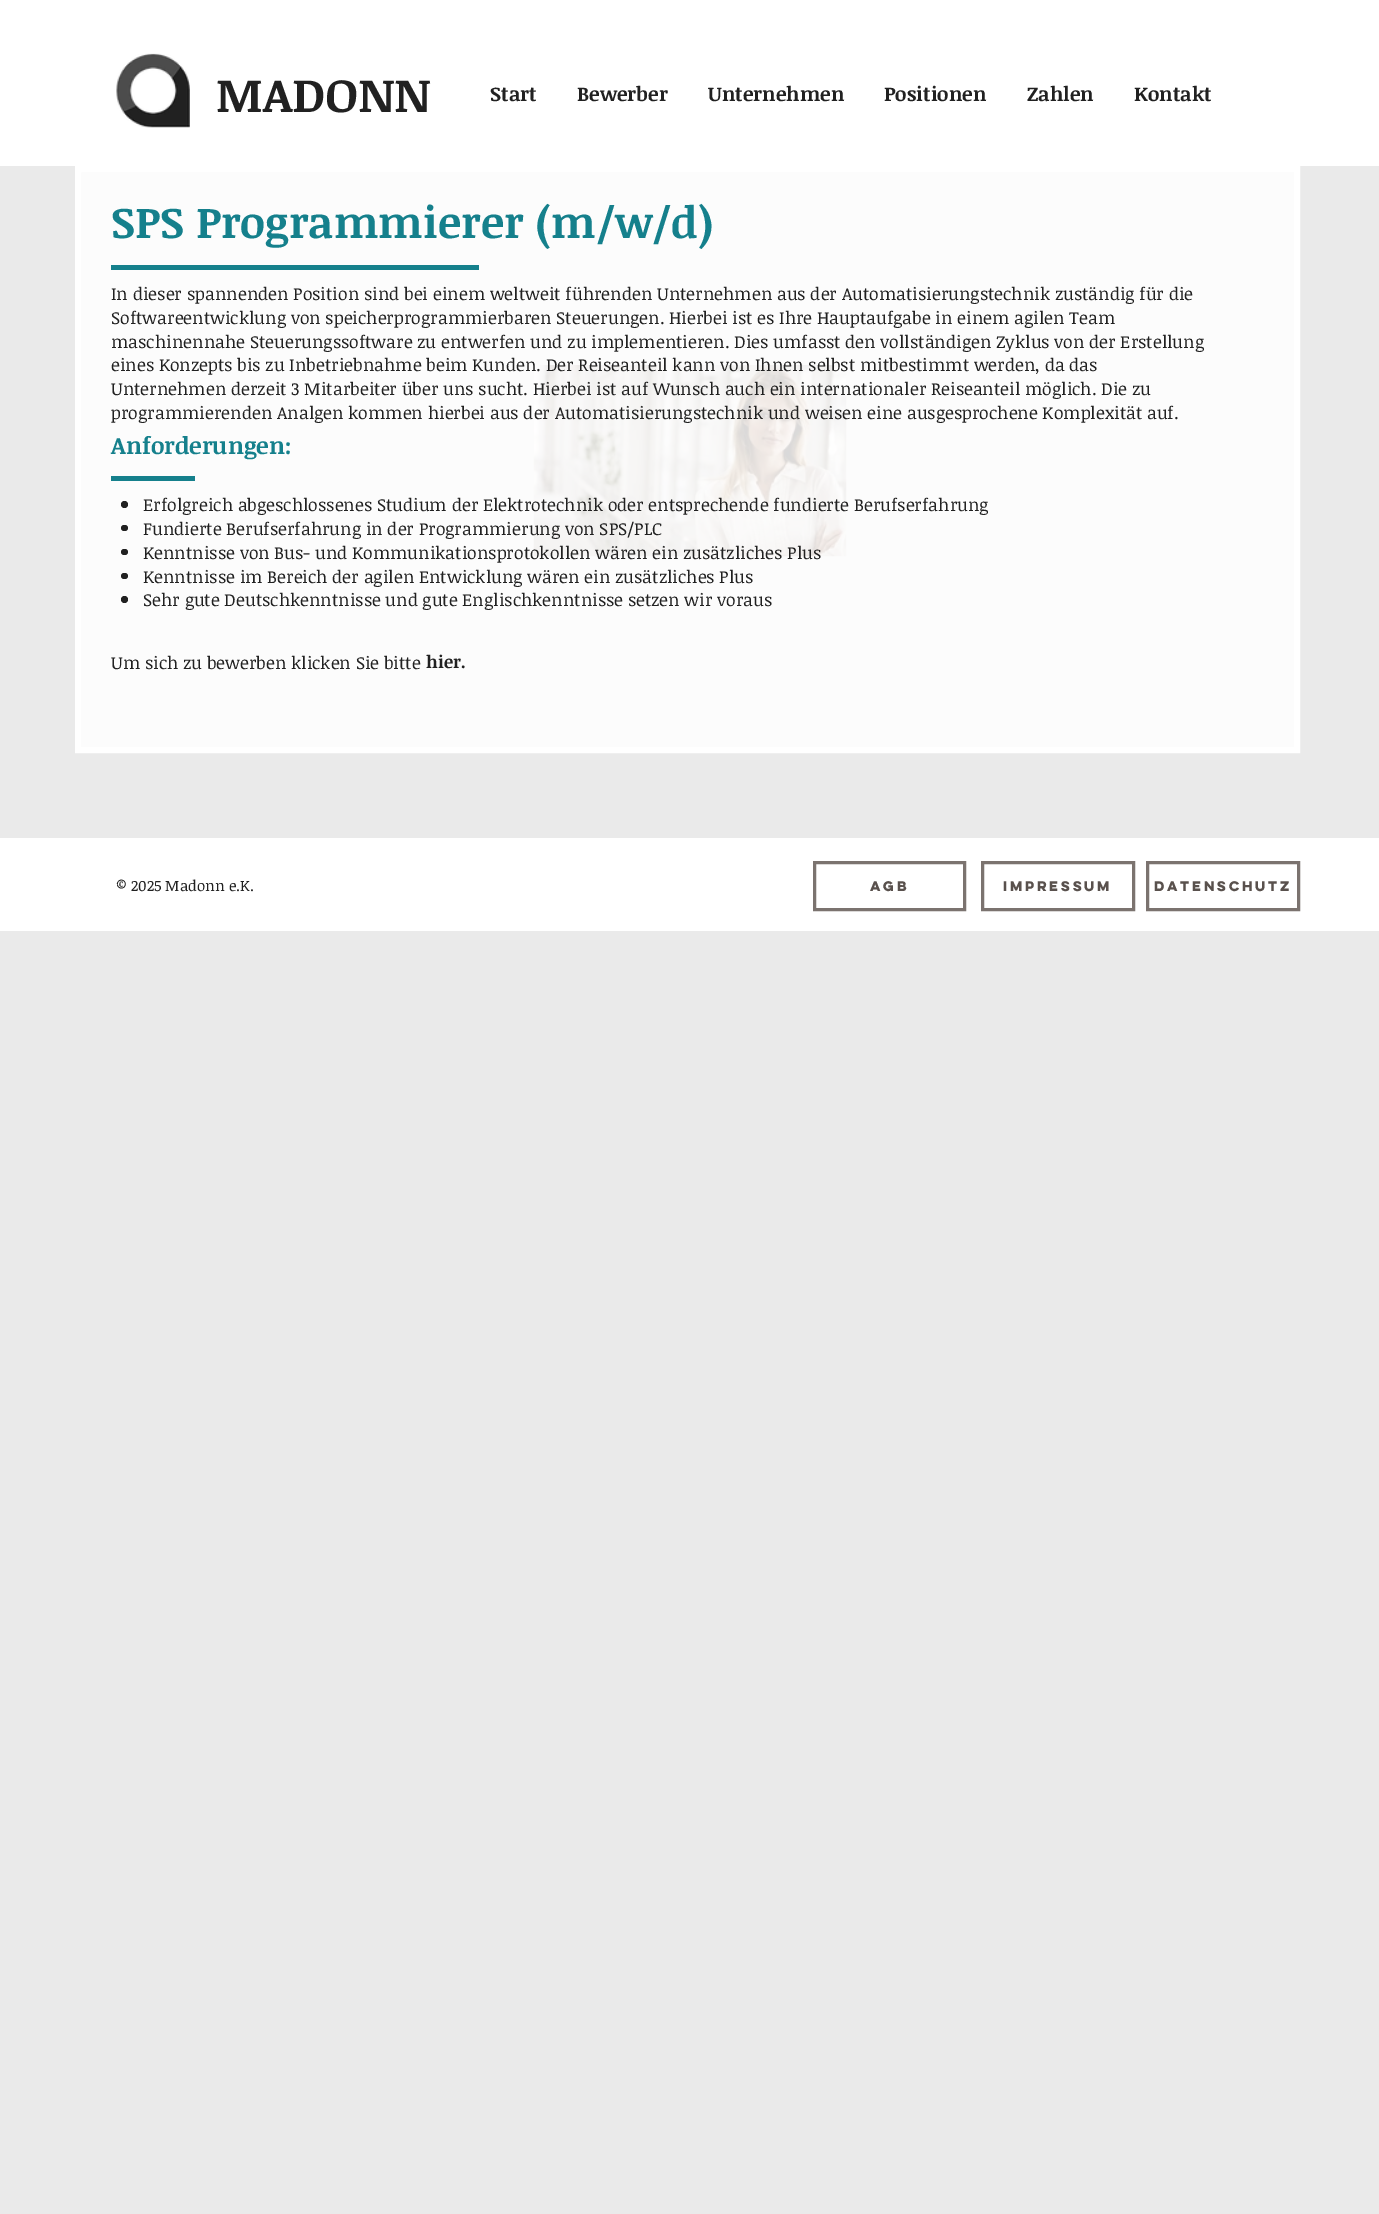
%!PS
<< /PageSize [1379 2214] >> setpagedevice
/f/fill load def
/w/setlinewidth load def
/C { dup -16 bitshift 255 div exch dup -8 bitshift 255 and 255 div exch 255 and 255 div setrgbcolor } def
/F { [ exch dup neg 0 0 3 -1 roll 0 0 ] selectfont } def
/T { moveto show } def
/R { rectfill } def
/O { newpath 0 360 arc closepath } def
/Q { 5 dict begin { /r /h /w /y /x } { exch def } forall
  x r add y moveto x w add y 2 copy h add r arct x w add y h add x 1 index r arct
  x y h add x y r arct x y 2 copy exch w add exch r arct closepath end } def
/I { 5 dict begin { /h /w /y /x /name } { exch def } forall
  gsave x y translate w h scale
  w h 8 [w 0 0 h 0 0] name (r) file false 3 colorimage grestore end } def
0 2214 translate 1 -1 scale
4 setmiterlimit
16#EAEAEA C
0 0 1379 2214 R
16#FFFFFF C
0 0 1379 166 R
(1.rgb) 116 53 74 75 I
/NoticiaText-Bold 47.5 F
16#212121 C
(MADONN) 216 112 T
/NoticiaText-Bold 20 F
(Start) 490 101 T
(Bewerber) 577 101 T
(Unternehmen) 708 101 T
(Positionen) 884 101 T
(Zahlen) 1027 101 T
(Kontakt) 1134 101 T
16#FCFCFC C
81 172 1213 575 R
(2.rgb) 533 365 314 192 I
16#FFFFFF C
6 w
78 169 1219 581 rectstroke
/NoticiaText-Bold 43.75 F
16#15808C C
(SPS Programmierer \(m/w/d\)) 111 238 T
111 265 368 5 R
/NoticiaText-Regular 17.5 F
16#212121 C
(In dieser spannenden Position sind bei einem weltweit führenden Unternehmen aus der Automatisierungstechnik zuständig für die) 111 300 T
(Softwareentwicklung von speicherprogrammierbaren Steuerungen. Hierbei ist es Ihre Hauptaufgabe in einem agilen Team) 111 324 T
(maschinennahe Steuerungssoftware zu entwerfen und zu implementieren. Dies umfasst den vollständigen Zyklus von der Erstellung) 111 348 T
(eines Konzepts bis zu Inbetriebnahme beim Kunden. Der Reiseanteil kann von Ihnen selbst mitbestimmt werden, da das) 111 371 T
(Unternehmen derzeit 3 Mitarbeiter über uns sucht. Hierbei ist auf Wunsch auch ein internationaler Reiseanteil möglich. Die zu) 111 395 T
(programmierenden Analgen kommen hierbei aus der Automatisierungstechnik und weisen eine ausgesprochene Komplexität auf.) 111 419 T
/NoticiaText-Bold 23.75 F
16#15808C C
(Anforderungen:) 111 454 T
111 476 84 5 R
16#212121 C
124.5 504.5 3.5 O f
/NoticiaText-Regular 17.5 F
(Erfolgreich abgeschlossenes Studium der Elektrotechnik oder entsprechende fundierte Berufserfahrung) 143 511 T
121 525 7 6 3 Q f
(Fundierte Berufserfahrung in der Programmierung von SPS/PLC) 143 535 T
121 549 7 6 3 Q f
(Kenntnisse von Bus- und Kommunikationsprotokollen wären ein zusätzliches Plus) 143 559 T
121 573 7 6 3 Q f
(Kenntnisse im Bereich der agilen Entwicklung wären ein zusätzliches Plus) 143 583 T
124.5 599.5 3.5 O f
(Sehr gute Deutschkenntnisse und gute Englischkenntnisse setzen wir voraus) 143 606 T
(Um sich zu bewerben klicken Sie bitte) 111 669 T
/NoticiaText-Bold 17.5 F
(hier.) 426 668 T
16#FFFFFF C
0 838 1379 93 R
/NoticiaText-Regular 15 F
16#212121 C
(© 2025 Madonn e.K.) 116 891 T
16#7B736F C
3 w
814.5 862.5 150 47 rectstroke
/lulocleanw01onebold-Bold 12.5 F
16#59514D C
(AGB) 870 891 T
16#7B736F C
982.5 862.5 151 47 rectstroke
16#59514D C
(Impressum) 1003 891 T
16#7B736F C
1147.5 862.5 151 47 rectstroke
16#59514D C
(Datenschutz) 1154 891 T
showpage
